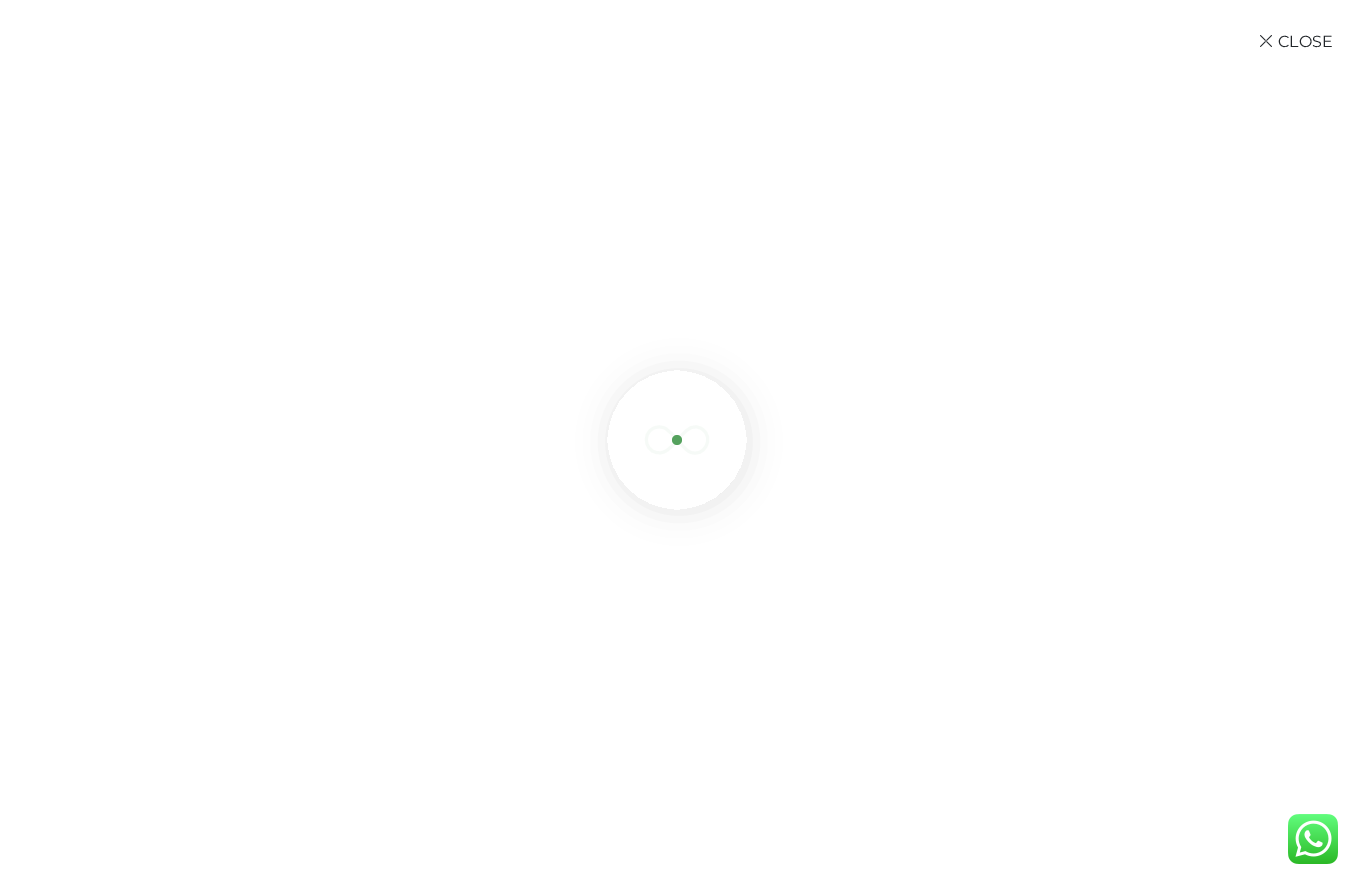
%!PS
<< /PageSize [1353 879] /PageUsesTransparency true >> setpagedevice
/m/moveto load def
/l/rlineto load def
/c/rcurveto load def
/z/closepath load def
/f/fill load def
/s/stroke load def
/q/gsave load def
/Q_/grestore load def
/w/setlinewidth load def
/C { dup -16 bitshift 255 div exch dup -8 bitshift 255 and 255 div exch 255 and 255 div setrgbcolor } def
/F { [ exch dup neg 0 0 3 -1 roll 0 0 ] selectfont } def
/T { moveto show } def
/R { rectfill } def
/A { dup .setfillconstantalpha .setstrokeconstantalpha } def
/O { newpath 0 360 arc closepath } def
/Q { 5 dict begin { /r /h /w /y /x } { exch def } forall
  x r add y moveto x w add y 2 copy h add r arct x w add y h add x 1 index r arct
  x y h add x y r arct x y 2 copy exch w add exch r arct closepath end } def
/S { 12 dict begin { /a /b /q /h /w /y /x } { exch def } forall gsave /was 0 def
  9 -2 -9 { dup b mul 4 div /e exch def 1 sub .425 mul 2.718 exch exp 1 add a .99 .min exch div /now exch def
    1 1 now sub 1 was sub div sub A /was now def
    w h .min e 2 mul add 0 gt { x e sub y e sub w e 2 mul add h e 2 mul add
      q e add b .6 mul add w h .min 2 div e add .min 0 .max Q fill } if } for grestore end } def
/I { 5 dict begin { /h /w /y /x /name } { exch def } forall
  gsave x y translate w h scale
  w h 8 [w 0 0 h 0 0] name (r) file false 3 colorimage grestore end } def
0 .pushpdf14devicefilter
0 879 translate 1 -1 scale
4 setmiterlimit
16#FFFFFF C
0 0 1353 879 R
(1.rgb) 1260 35 12 12 I
/Montserrat-Regular 16 F
16#212529 C
(CLOSE) 1278 47 T
q
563 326 m 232 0 l 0 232 l -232 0 l z 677 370 m 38.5 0 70 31.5 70 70 c 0 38.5 -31.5 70 -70 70 c -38.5 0 -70 -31.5 -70 -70 c 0 -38.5 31.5 -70 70 -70 c z eoclip newpath
16#000000 C
609 372 140 140 70 15 .1 S
Q_
16#54A15D C
677 440 5 O f
0.05 A
3 w
1 setlinecap
1 setlinejoin
677 439.5 m 4 4 7.5 10 13 12.5 c 14 6.5 25 -14.5 12 -23 c -16 -11 -25.5 20.5 -40 23.5 c -15.5 3.5 -22 -18.5 -8 -24.5 c 3.5 -1.5 7 -1.5 10.5 0 c 5 2.5 8.5 7.5 12.5 11.5 c z s
1 A
(2.rgb) 1288 814 50 50 I
.poppdf14devicefilter showpage
